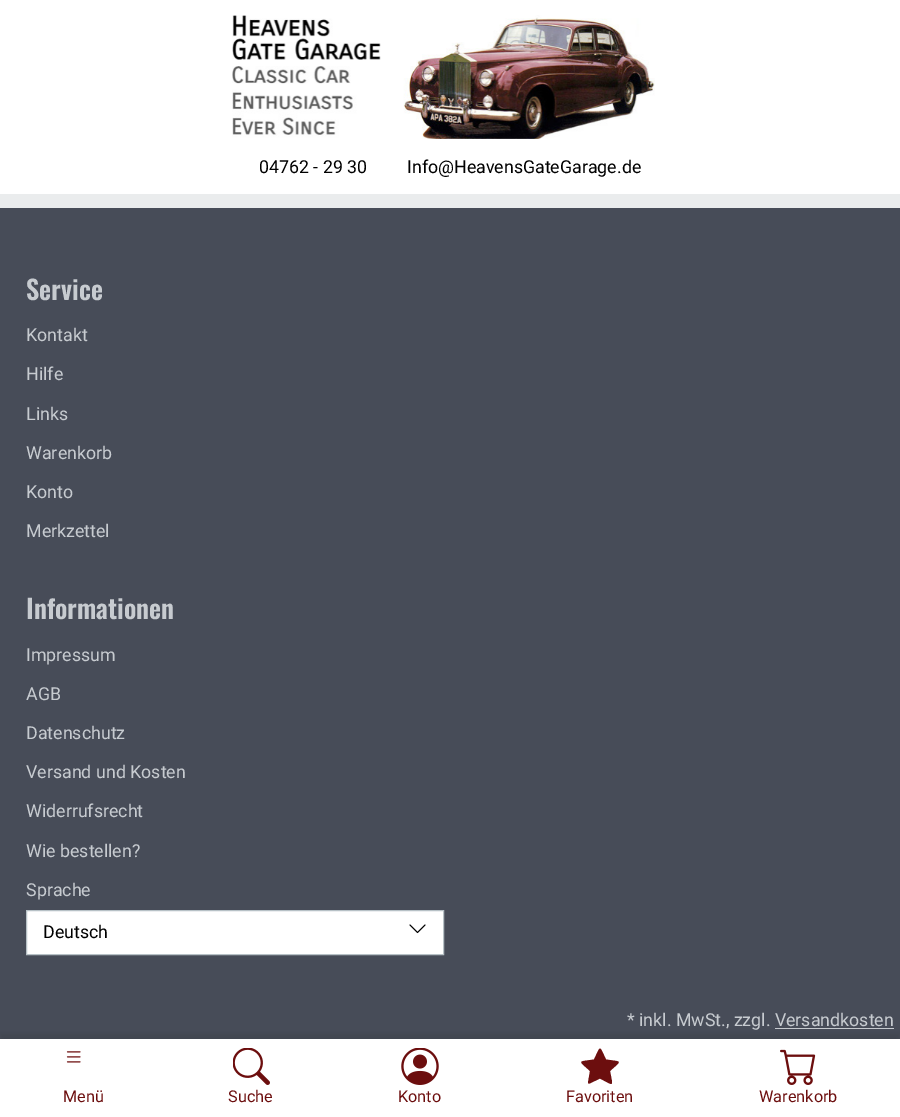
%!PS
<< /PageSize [900 1117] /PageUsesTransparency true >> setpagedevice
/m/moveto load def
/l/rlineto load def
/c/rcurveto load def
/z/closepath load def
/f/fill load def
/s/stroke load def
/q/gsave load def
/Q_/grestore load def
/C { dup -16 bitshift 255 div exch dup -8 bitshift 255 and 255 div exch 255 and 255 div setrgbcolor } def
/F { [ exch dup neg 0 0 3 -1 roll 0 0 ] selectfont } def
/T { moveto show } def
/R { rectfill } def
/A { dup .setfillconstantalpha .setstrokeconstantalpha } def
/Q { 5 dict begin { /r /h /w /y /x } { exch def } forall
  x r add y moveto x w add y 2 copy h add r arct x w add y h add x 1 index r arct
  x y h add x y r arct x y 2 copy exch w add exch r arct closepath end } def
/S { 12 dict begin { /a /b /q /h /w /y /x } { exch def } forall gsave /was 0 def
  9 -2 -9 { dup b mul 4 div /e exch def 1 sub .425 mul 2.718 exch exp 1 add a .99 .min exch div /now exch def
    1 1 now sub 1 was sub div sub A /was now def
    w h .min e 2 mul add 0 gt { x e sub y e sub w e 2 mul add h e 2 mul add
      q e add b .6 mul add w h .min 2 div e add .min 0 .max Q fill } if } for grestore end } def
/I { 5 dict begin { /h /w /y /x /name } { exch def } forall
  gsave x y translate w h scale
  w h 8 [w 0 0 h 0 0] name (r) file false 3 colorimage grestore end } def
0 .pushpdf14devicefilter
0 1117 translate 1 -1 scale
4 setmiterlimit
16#EAECED C
0 0 900 1117 R
16#FFFFFF C
0 0 900 194 R
(1.rgb) 232 15 423 124 I
/Roboto-Regular 17.8 F
16#000000 C
(04762 - 29 30) 259 173 T
(Info@HeavensGateGarage.de) 407 173 T
16#474C58 C
0 208 900 831 R
16#C7CBD0 C
775 1028 119 1 R
16#000000 C
0 1033 900 78 0 3 .1 S
16#FFFFFF C
0 1039 900 78 R
(2.rgb) 66 1051 15 12 I
/Roboto-Regular 16.25 F
16#6C0E0E C
(Menü) 63 1102 T
(3.rgb) 233 1048 37 37 I
(Suche) 228 1102 T
(4.rgb) 401 1048 38 37 I
(Konto) 398 1102 T
589.5 1083.5 m -.5 .5 -1.5 0 -1.5 -1 c 2 -11.5 l -12 -11 -12.5 -9 4 -11.5 c 7 -14.5 5 -14.5 12 0 c 16.5 2.5 16 .5 4 11.5 c 3 16.5 4.5 15 -10 7.5 c z f
(Favoriten) 566 1102 T
(5.rgb) 780 1049 36 36 I
(Warenkorb) 759 1102 T
/Oswald-SemiBold 26.25 F
16#C7CBD0 C
(Service) 26 300 T
/Roboto-Regular 17.8 F
(Kontakt) 26 341 T
(Hilfe) 26 380 T
(Links) 26 420 T
(Warenkorb) 26 459 T
(Konto) 26 498 T
(Merkzettel) 26 537 T
/Oswald-SemiBold 26.25 F
(Informationen) 26 619 T
/Roboto-Regular 17.8 F
(Impressum) 26 661 T
(AGB) 26 700 T
(Datenschutz) 26 739 T
(Versand und Kosten) 26 778 T
(Widerrufsrecht) 26 817 T
(Wie bestellen?) 26 857 T
(Sprache) 26 896 T
16#FFFFFF C
26.5 910.5 m 417 0 l 0 44 l -417 0 l z q f Q_
16#B7C1C6 C
s
16#000000 C
(Deutsch) 43 938 T
(6.rgb) 409 924 17 10 I
16#C7CBD0 C
(* inkl. MwSt., zzgl. Versandkosten) 627 1026 T
.poppdf14devicefilter showpage
